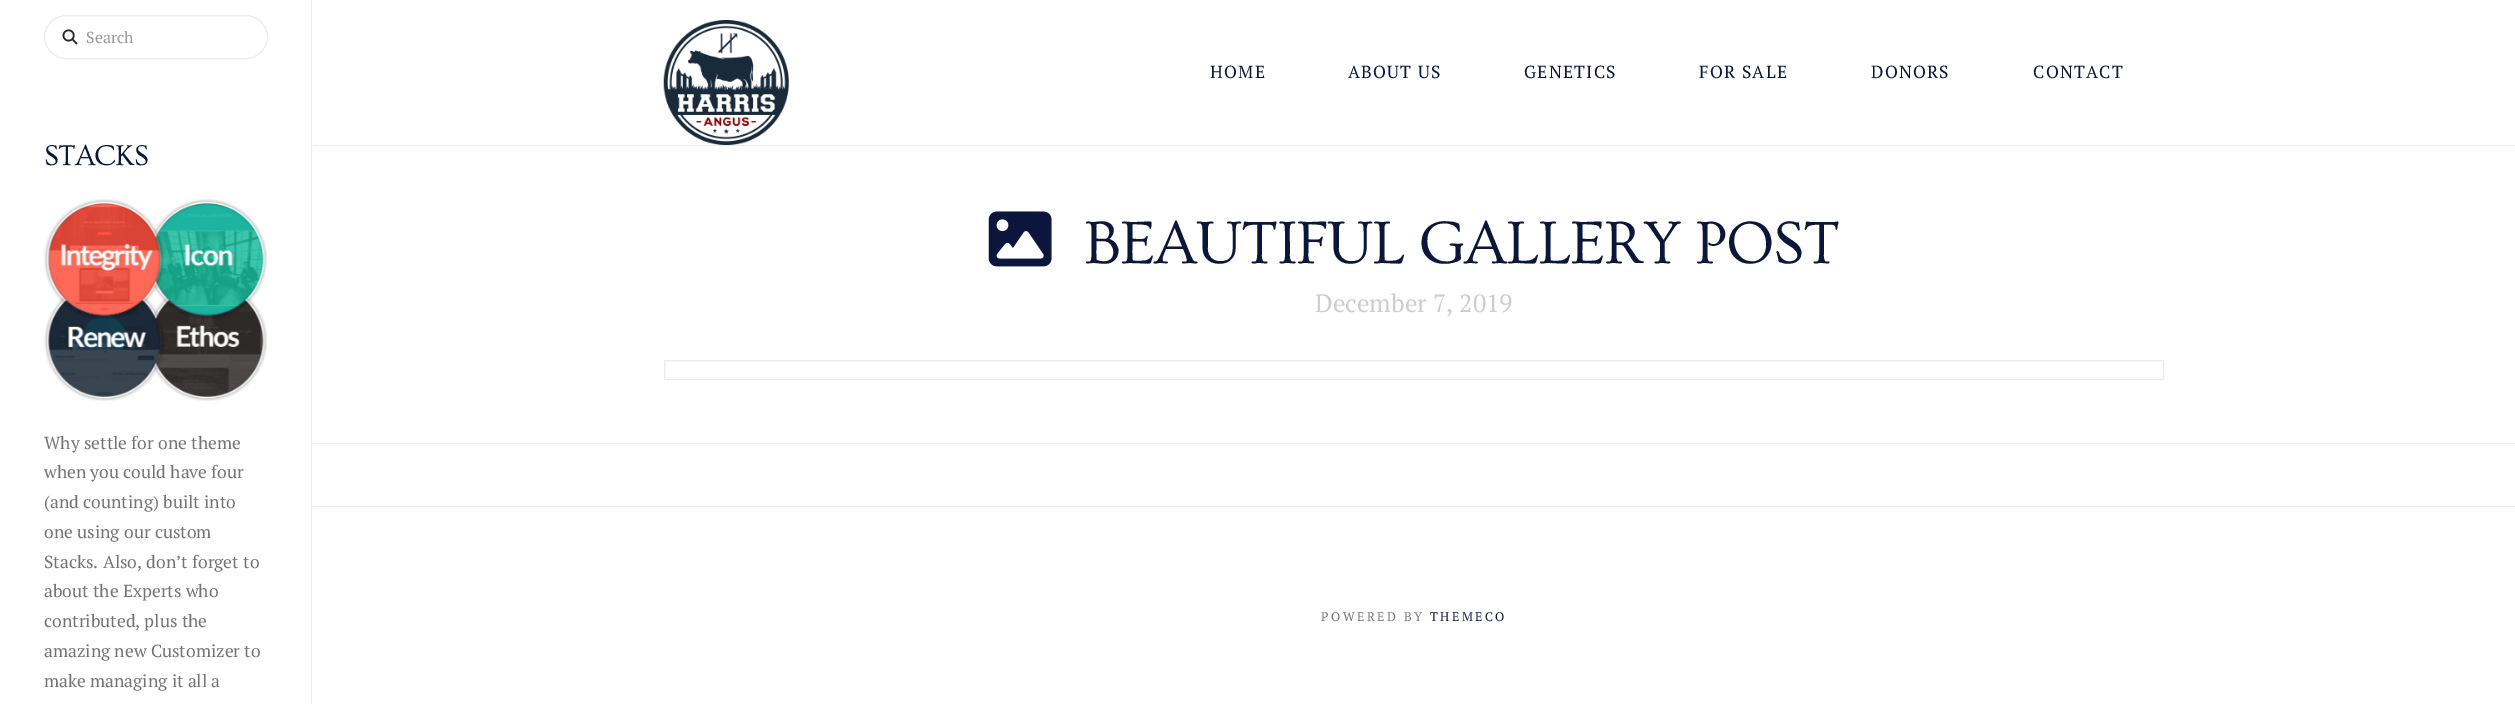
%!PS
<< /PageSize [2515 704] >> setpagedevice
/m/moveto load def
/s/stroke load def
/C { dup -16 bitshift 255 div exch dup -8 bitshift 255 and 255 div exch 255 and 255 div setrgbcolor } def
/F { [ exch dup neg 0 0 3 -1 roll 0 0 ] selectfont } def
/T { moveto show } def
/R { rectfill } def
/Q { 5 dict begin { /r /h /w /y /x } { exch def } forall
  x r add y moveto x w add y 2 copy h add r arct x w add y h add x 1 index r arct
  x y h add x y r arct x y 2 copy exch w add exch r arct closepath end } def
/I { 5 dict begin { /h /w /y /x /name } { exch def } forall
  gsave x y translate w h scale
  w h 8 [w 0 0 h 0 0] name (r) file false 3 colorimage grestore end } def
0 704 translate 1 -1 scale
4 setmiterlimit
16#FFFFFF C
0 0 2515 704 R
16#ECECEC C
311 0 1 704 R
44.5 15.5 223 43 21.5 Q s
(1.rgb) 62 29 16 16 I
/PTSerif-Regular 16 F
16#999999 C
(Search) 86 43 T
/Ovo-Regular 30 F
16#0C163C C
44 165 m -1 0 (STACKS) ashow
(2.rgb) 44 199 223 202 I
/PTSerif-Regular 17.5 F
16#737373 C
(Why settle for one theme) 44 449 T
(when you could have four) 44 478 T
(\(and counting\) built into) 44 508 T
(one using our custom) 44 538 T
(Stacks. Also, don’t forget to) 44 568 T
(about the Experts who) 44 597 T
(contributed, plus the) 44 627 T
(amazing new Customizer to) 44 657 T
(make managing it all a) 44 687 T
16#ECECEC C
313 145 2202 1 R
(3.rgb) 663 20 126 125 I
16#0C163C C
1210 78 m 1.25 0 (HOME) ashow
1348 78 m 1.25 0 (ABOUT US) ashow
1524 78 m 1.25 0 (GENETICS) ashow
1699 78 m 1.25 0 (FOR SALE) ashow
1871 78 m 1.25 0 (DONORS) ashow
2033 78 m 1.25 0 (CONTACT) ashow
16#ECECEC C
313 443 2202 1 R
(4.rgb) 988 211 64 56 I
/Ovo-Regular 62.75 F
16#0C163C C
1084 263 m -1.4 0 (BEAUTIFUL GALLERY POST) ashow
/PTSerif-Regular 25 F
16#CECECE C
(December 7, 2019) 1315 312 T
16#ECECEC C
664.5 360.5 1499 19 rectstroke
313 506 2202 1 R
/PTSerif-Regular 12.5 F
16#737373 C
1321 621 m 2.5 0 (POWERED BY) ashow
16#0C163C C
1430 621 m 2.5 0 (THEMECO) ashow
showpage
